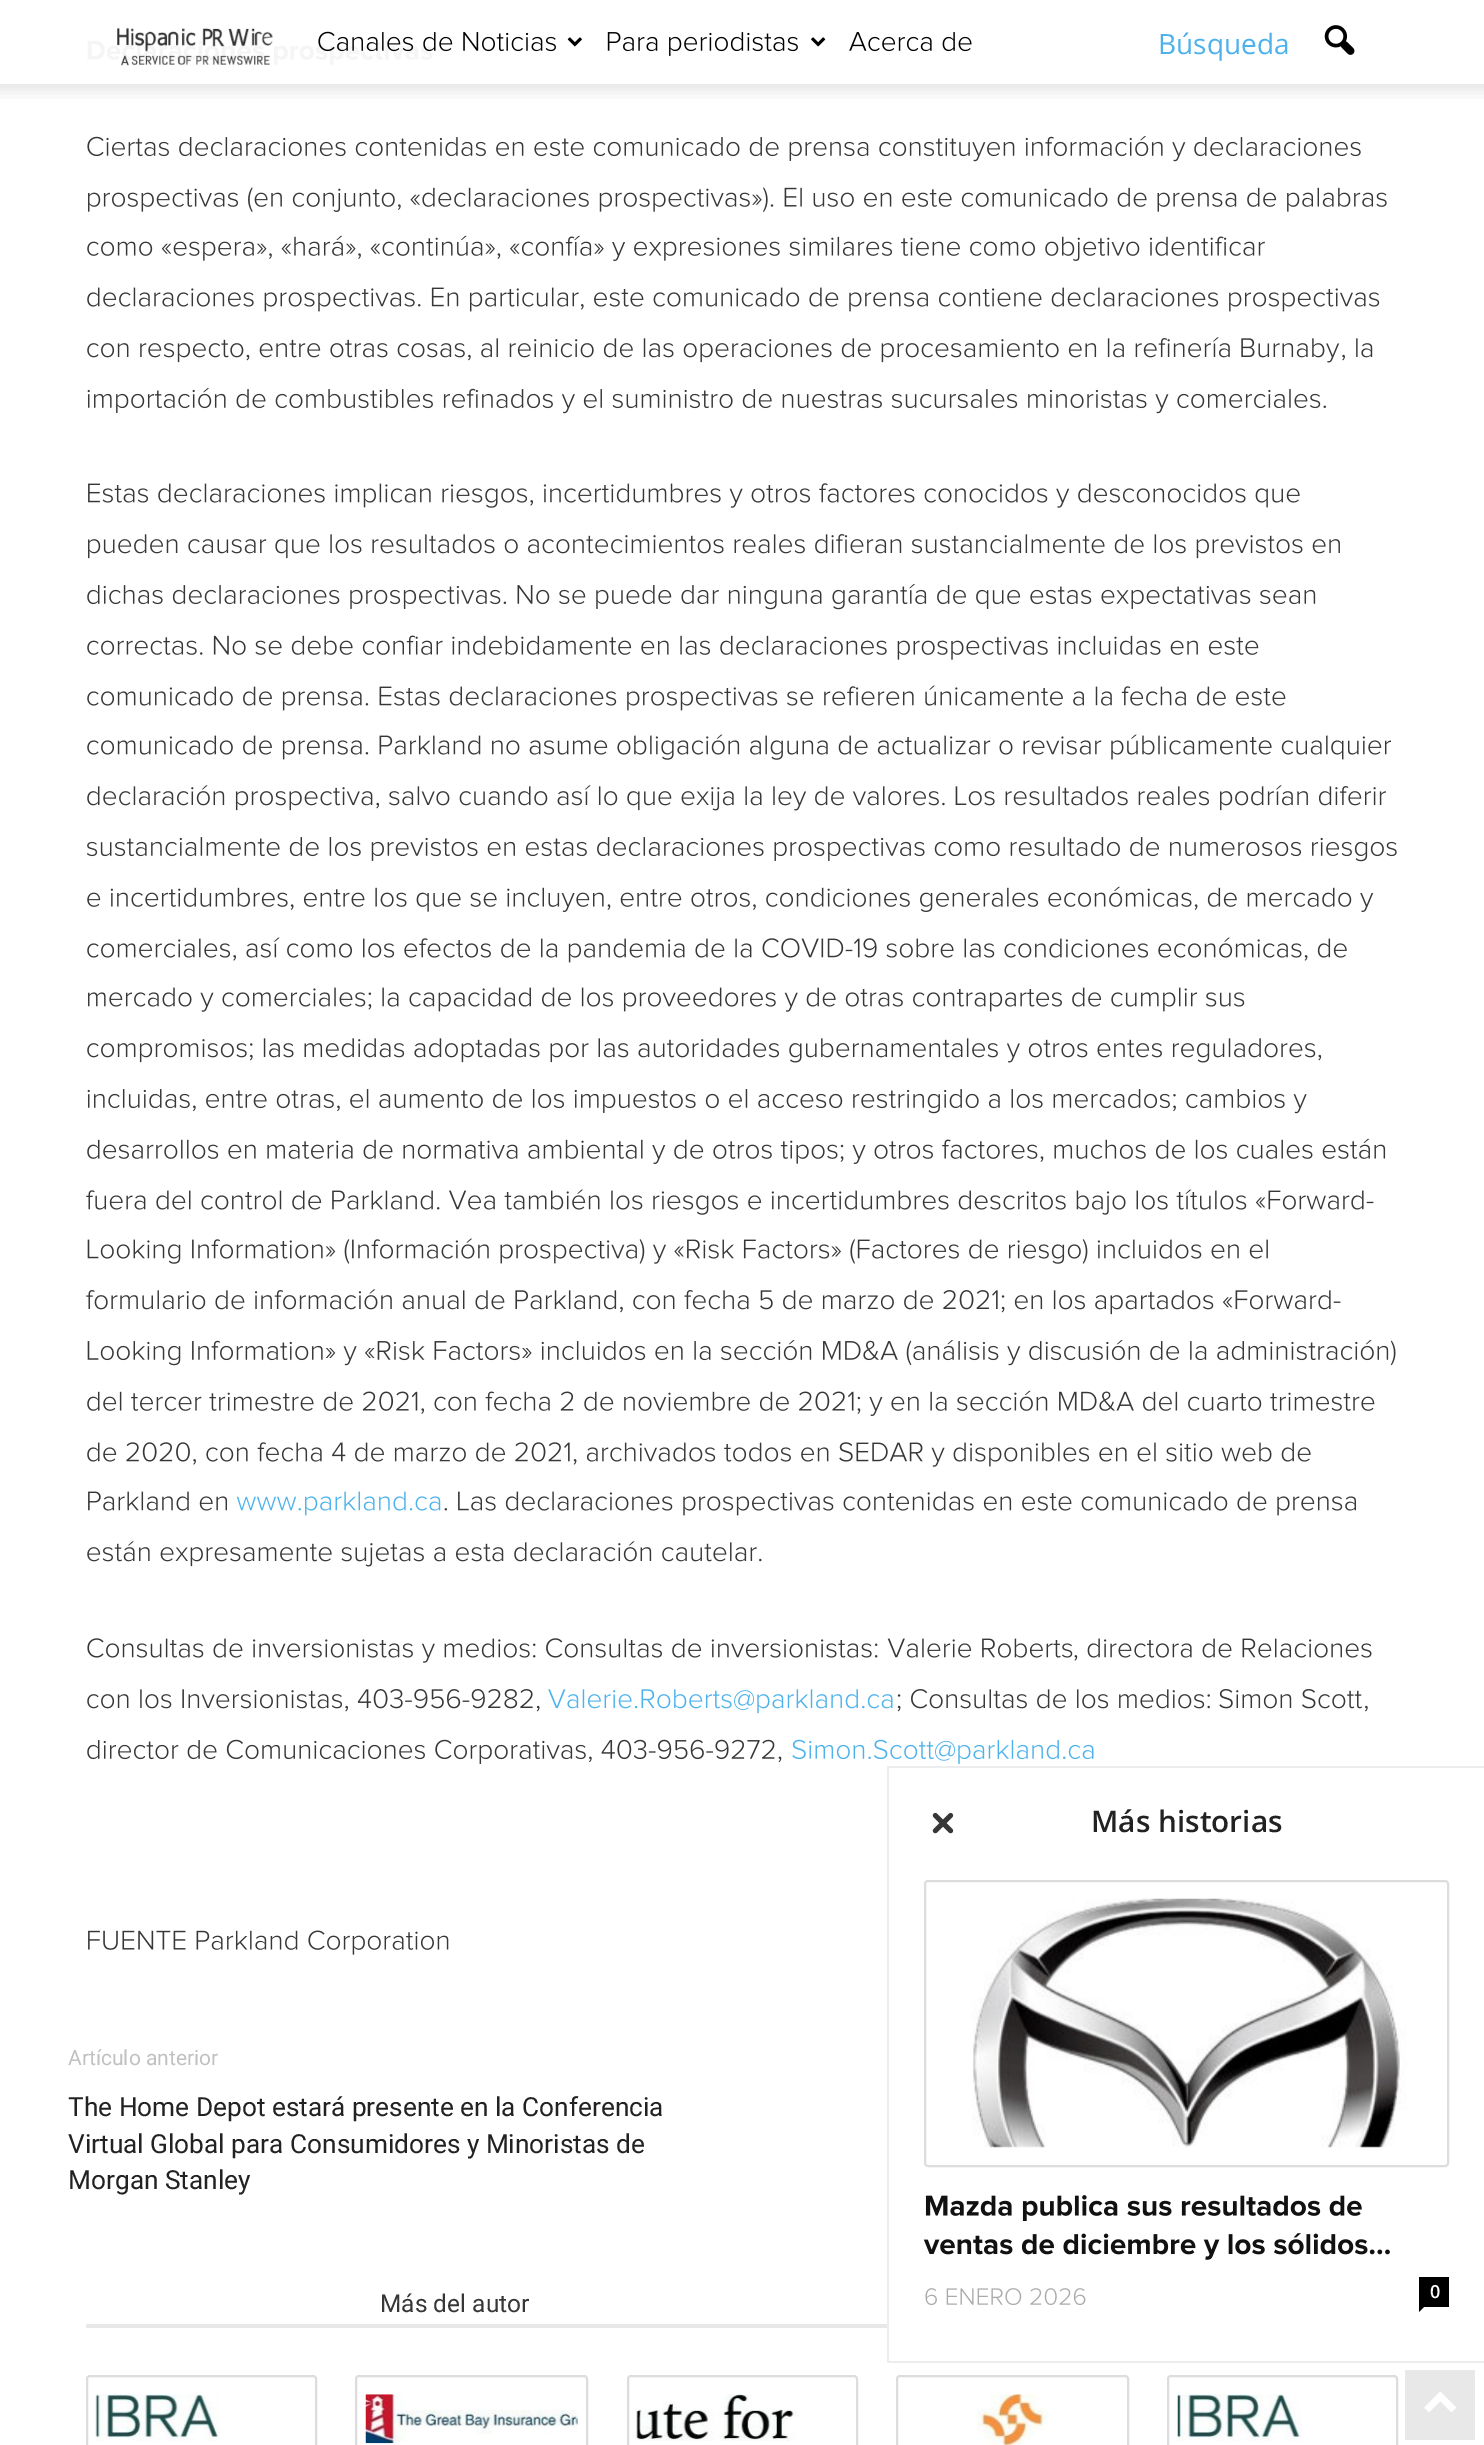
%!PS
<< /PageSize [1484 2445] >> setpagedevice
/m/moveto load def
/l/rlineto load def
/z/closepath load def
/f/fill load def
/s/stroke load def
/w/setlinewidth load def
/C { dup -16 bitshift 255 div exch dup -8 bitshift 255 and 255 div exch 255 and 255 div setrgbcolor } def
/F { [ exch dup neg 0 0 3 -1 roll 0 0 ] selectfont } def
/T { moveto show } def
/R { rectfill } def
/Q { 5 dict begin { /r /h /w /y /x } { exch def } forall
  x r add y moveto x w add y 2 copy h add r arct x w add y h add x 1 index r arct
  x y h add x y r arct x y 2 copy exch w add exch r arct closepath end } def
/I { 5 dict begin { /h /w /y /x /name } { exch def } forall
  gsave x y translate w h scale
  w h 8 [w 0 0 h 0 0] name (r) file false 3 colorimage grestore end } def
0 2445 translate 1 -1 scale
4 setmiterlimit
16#FFFFFF C
0 0 1484 2445 R
(9.rgb) 87 40 346 25 I
(1.rgb) 117 27 156 39 I
(2.rgb) 318 31 238 21 I
(3.rgb) 567 37 15 10 I
(4.rgb) 607 32 191 24 I
(5.rgb) 811 37 15 10 I
(6.rgb) 849 32 123 20 I
/OpenSans-Regular 28 F
16#4DB2EC C
(Búsqueda) 1158 54 T
(7.rgb) 1324 25 31 30 I
(8.rgb) 0 84 1484 15 I
(10.rgb) 87 136 1274 26 I
(11.rgb) 88 187 1299 25 I
(12.rgb) 87 235 1178 26 I
(13.rgb) 87 287 1293 25 I
(14.rgb) 87 337 1143 26 I
(15.rgb) 1241 338 99 25 I
(16.rgb) 1342 338 31 23 I
(17.rgb) 87 388 1239 26 I
(18.rgb) 88 483 1212 25 I
(19.rgb) 88 534 1252 25 I
(20.rgb) 87 584 1229 26 I
(21.rgb) 87 635 1172 25 I
(22.rgb) 87 685 1199 26 I
(23.rgb) 87 734 1304 26 I
(24.rgb) 87 785 1299 26 I
(25.rgb) 86 837 1311 25 I
(26.rgb) 87 886 1287 26 I
(27.rgb) 87 937 1260 26 I
(28.rgb) 88 987 1157 25 I
(29.rgb) 87 1038 1235 25 I
(30.rgb) 87 1089 1220 25 I
(31.rgb) 87 1138 1299 26 I
(32.rgb) 86 1189 1288 26 I
(33.rgb) 87 1238 1181 26 I
(34.rgb) 86 1289 1255 26 I
(35.rgb) 87 1340 1309 26 I
(36.rgb) 87 1390 1288 26 I
(37.rgb) 87 1442 1224 25 I
(38.rgb) 88 1491 139 20 I
(39.rgb) 236 1491 205 25 I
(40.rgb) 444 1491 912 25 I
(41.rgb) 87 1541 675 26 I
(42.rgb) 87 1638 791 25 I
(43.rgb) 887 1638 186 20 I
(44.rgb) 1074 1638 298 23 I
(45.rgb) 87 1689 453 23 I
(46.rgb) 548 1689 345 25 I
(47.rgb) 897 1689 313 23 I
(48.rgb) 1219 1689 143 20 I
(49.rgb) 1365 1705 3 7 I
(50.rgb) 87 1739 695 25 I
(51.rgb) 792 1739 302 25 I
(52.rgb) 88 1930 98 20 I
(53.rgb) 196 1930 253 25 I
/Roboto-Regular 21 F
16#C1C1C1 C
(Artículo anterior) 68 2065 T
/Roboto-Regular 26.25 F
16#222222 C
(The Home Depot estará presente en la Conferencia) 68 2116 T
(Virtual Global para Consumidores y Minoristas de) 68 2153 T
(Morgan Stanley) 68 2189 T
16#E8E8E8 C
86 2324 801 4 R
/Roboto-Regular 24.5 F
16#373737 C
(Más del autor) 380 2312 T
16#DDDDDD C
2 w
87 2376 229 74 3 Q s
(54.rgb) 95 2394 125 47 I
356 2376 231 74 3 Q s
(55.rgb) 365 2394 213 50 I
628 2376 229 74 3 Q s
(56.rgb) 636 2394 163 47 I
897 2376 231 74 3 Q s
(57.rgb) 975 2394 73 51 I
1168 2376 229 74 3 Q s
(58.rgb) 1177 2394 125 47 I
16#EDEDED C
887 1766 597 2 R
887 2361 597 2 R
887 1766 2 597 R
(59.rgb) 932 1812 22 22 I
/OpenSans-SemiBold 29.75 F
16#222222 C
(Más historias) 1091 1832 T
16#DDDDDD C
925 1881 523 285 3 Q s
(60.rgb) 972 1898 435 250 I
(61.rgb) 925 2195 437 26 I
(62.rgb) 923 2233 467 27 I
(63.rgb) 925 2288 161 17 I
16#000000 C
1419 2277 30 30 R
/OpenSans-SemiBold 18 F
16#FFFFFF C
(0) 1430 2298 T
16#000000 C
1419 2306.5 m 5.5 0 l -5.5 5.5 l z f
16#E8E8E8 C
1405 2370 70 70 R
(64.rgb) 1424 2392 32 20 I
showpage
